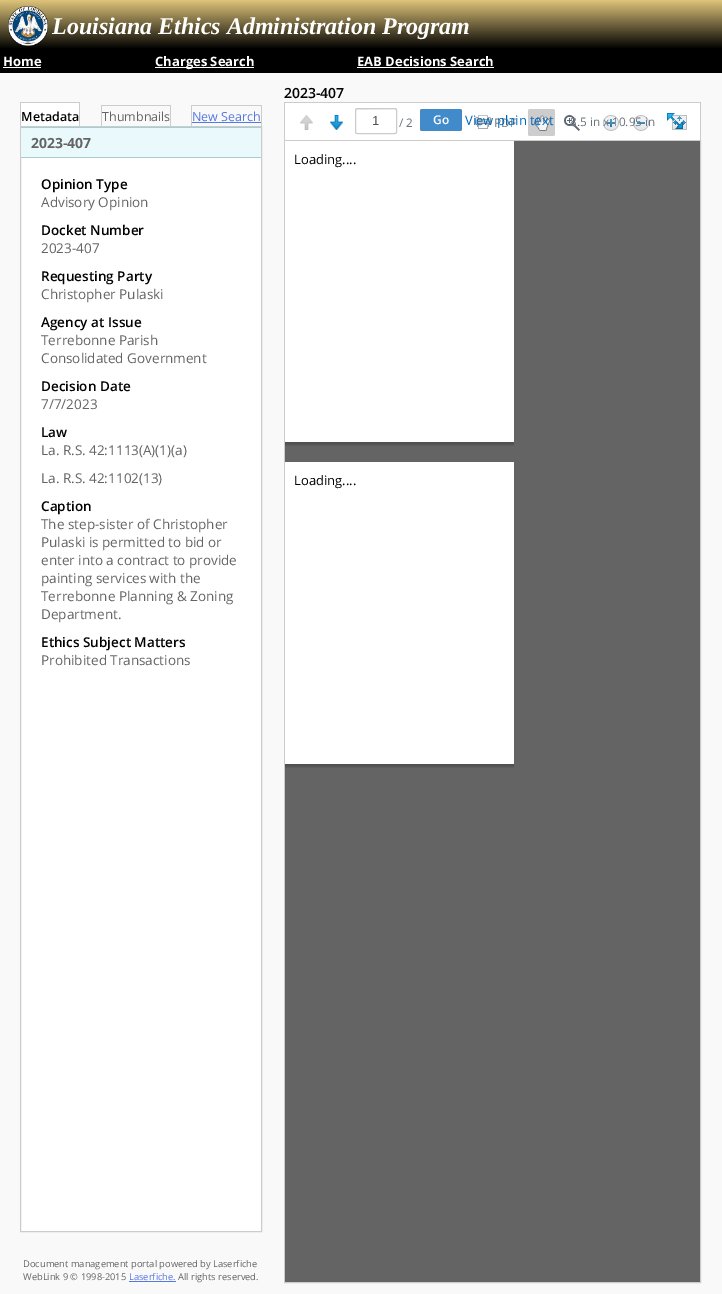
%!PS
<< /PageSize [722 1294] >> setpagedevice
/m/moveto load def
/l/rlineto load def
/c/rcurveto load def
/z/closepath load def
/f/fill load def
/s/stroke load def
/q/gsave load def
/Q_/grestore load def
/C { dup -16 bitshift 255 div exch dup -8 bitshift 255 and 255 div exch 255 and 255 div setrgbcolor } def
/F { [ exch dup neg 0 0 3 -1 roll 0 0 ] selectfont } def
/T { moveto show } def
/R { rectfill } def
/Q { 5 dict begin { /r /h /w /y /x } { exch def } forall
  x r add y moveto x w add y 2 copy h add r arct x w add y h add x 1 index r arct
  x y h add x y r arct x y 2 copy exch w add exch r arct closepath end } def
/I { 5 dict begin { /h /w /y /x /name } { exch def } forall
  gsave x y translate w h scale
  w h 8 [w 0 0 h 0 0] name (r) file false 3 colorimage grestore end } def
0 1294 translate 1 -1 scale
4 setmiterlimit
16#F9F9F9 C
0 0 722 1294 R
q 0 0 m 722 0 l 0 49 l -722 0 l z clip newpath
<< /ShadingType 2 /ColorSpace /DeviceRGB /Coords [361 0 361 49] /Extend [true true] /Function << /FunctionType 2 /Domain [0 1] /C0 [.875 .773 .478] /C1 [0 0 0] /N 1 >> >> shfill Q_
(1.rgb) 8 6 40 40 I
/LiberationSerif-BoldItalic 24 F
16#FFFFFF C
(Louisiana Ethics Administration Program) 52 34 T
16#000000 C
0 49 722 24 R
/OpenSans-Bold 13 F
16#FFFFFF C
(Home) 3 66 T
3 67 38 1 R
155 67 99 1 R
(Charges Search) 155 66 T
(EAB Decisions Search) 357 66 T
357 67 137 1 R
/OpenSans-SemiBold 14 F
16#000000 C
(2023-407) 284 98 T
16#FFFFFF C
21 103 58 23 R
16#CCCCCC C
20 102 60 1 R
79 102 1 25 R
20 102 1 25 R
/OpenSans-SemiBold 12.5 F
16#000000 C
(Metadata) 21 121 T
16#CCCCCC C
101 105 70 1 R
171 105 m 0 22 l -1 -1 l 0 -20 l z f
101 127 m 0 -22 l 1 1 l 0 20 l z f
/OpenSans-Regular 12.5 F
16#646464 C
(Thumbnails) 102 121 T
16#CCCCCC C
191 105 71 1 R
262 105 m 0 22 l -1 -1 l 0 -20 l z f
191 127 m 0 -22 l 1 1 l 0 20 l z f
16#5578E3 C
(New Search) 192 121 T
192 122 69 1 R
16#FFFFFF C
21 158 240 1073 R
16#CCCCCC C
20.5 126.5 241 1105 rectstroke
16#E9F9FC C
21 128 240 29 R
16#A7CED5 C
21 127 240 1 R
21 157 240 1 R
/OpenSans-Bold 14 F
16#646464 C
(2023-407) 31 148 T
/OpenSans-SemiBold 13.5 F
16#000000 C
(Opinion Type) 41 189 T
/OpenSans-Regular 13.5 F
16#646464 C
(Advisory Opinion) 41 207 T
/OpenSans-SemiBold 13.5 F
16#000000 C
(Docket Number) 41 235 T
/OpenSans-Regular 13.5 F
16#646464 C
(2023-407) 41 253 T
/OpenSans-SemiBold 13.5 F
16#000000 C
(Requesting Party) 41 281 T
/OpenSans-Regular 13.5 F
16#646464 C
(Christopher Pulaski) 41 299 T
/OpenSans-SemiBold 13.5 F
16#000000 C
(Agency at Issue) 41 327 T
/OpenSans-Regular 13.5 F
16#646464 C
(Terrebonne Parish) 41 345 T
(Consolidated Government) 41 363 T
/OpenSans-SemiBold 13.5 F
16#000000 C
(Decision Date) 41 391 T
/OpenSans-Regular 13.5 F
16#646464 C
(7/7/2023) 41 409 T
/OpenSans-SemiBold 13.5 F
16#000000 C
(Law) 41 437 T
/OpenSans-Regular 13.5 F
16#646464 C
(La. R.S. 42:1113\(A\)\(1\)\(a\)) 41 455 T
(La. R.S. 42:1102\(13\)) 41 483 T
/OpenSans-SemiBold 13.5 F
16#000000 C
(Caption) 41 511 T
/OpenSans-Regular 13.5 F
16#646464 C
(The step-sister of Christopher) 41 529 T
(Pulaski is permitted to bid or) 41 547 T
(enter into a contract to provide) 41 565 T
(painting services with the) 41 583 T
(Terrebonne Planning & Zoning) 41 601 T
(Department.) 41 619 T
/OpenSans-SemiBold 13.5 F
16#000000 C
(Ethics Subject Matters) 41 647 T
/OpenSans-Regular 13.5 F
16#646464 C
(Prohibited Transactions) 41 665 T
/OpenSans-Regular 9.3 F
(Document management portal powered by Laserfiche) 23 1267 T
(WebLink 9 © 1998-2015) 23 1280 T
16#5578E3 C
(Laserfiche.) 129 1280 T
129 1281 47 1 R
16#646464 C
(All rights reserved.) 178 1280 T
16#FFFFFF C
285 103 415 37 R
16#CCCCCC C
284 102 417 1 R
700 102 1 38 R
284 102 1 38 R
(2.rgb) 300 115 13 15 I
(3.rgb) 330 115 14 15 I
16#ECECEC C
357 110 m 38 -1 l 1 2 l 0 -4 -4 -2 -7 -2 c -26 0 l -3 0 -7 -2 -7 2 c z 396 132 m 0 0 l z eofill
16#CCCCCC C
355.5 108.5 41 25 1.5 Q s
/LiberationSans-Regular 13 F
16#555555 C
(1) 372 125 T
/OpenSans-Regular 11.75 F
16#6D757C C
(/ 2) 399 127 T
16#428BCA C
420 109 42 22 2 Q f
/OpenSans-SemiBold 12 F
16#FFFFFF C
(Go) 433 124 T
16#CDCDCD C
528 109 27 27 2 Q f
(4.rgb) 534 115 16 16 I
(6.rgb) 475 115 16 14 I
/OpenSans-Regular 11.75 F
16#6D757C C
(PDF) 494 127 T
/OpenSans-Regular 13 F
16#0069BA C
(View plain text) 465 125 T
(7.rgb) 564 115 16 16 I
(8.rgb) 603 115 16 16 I
(9.rgb) 633 115 16 16 I
/OpenSans-Regular 11.75 F
16#6D757C C
(8.5 in x 10.95 in) 570 126 T
(10.rgb) 672 115 15 15 I
(5.rgb) 667 113 16 16 I
16#CCCCCC C
284.5 140.5 416 1142 rectstroke
16#646464 C
285 141 415 1141 R
16#FFFFFF C
285 141 229 301 R
/OpenSans-Regular 13 F
16#000000 C
(Loading....) 294 164 T
(11.rgb) 285 442 229 4 I
16#FFFFFF C
285 462 229 302 R
16#000000 C
(Loading....) 294 485 T
(12.rgb) 285 764 229 4 I
showpage
